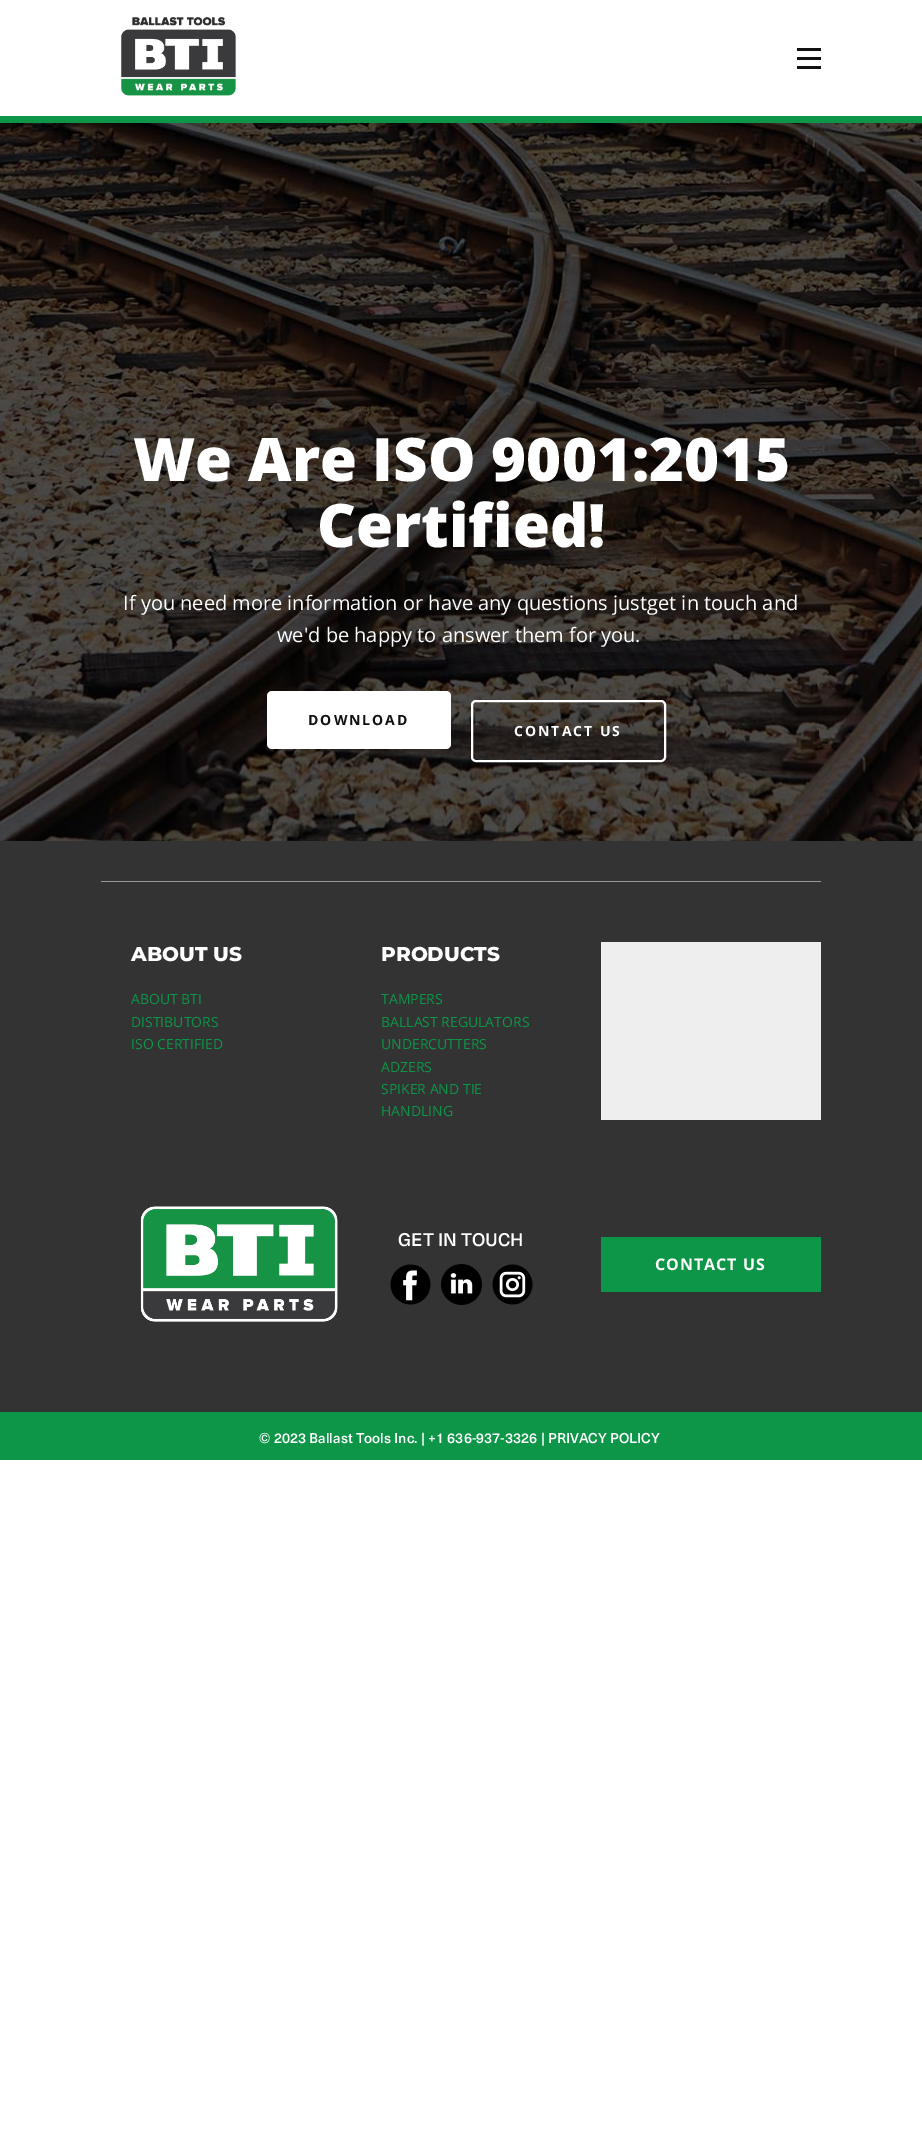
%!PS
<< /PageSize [922 2135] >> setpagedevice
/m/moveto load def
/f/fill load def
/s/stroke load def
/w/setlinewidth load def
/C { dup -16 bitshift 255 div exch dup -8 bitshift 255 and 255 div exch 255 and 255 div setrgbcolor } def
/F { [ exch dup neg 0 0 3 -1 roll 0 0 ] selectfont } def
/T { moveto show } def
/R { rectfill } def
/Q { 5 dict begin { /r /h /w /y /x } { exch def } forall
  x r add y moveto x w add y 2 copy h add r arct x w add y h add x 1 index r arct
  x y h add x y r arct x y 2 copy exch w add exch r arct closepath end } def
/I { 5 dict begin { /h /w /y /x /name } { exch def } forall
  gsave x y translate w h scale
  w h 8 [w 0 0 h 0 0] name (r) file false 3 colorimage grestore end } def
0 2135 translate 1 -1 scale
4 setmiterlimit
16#FFFFFF C
0 0 922 2135 R
16#0D9647 C
0 116 922 7 R
(1.rgb) 121 17 115 79 I
16#111111 C
797 48 24 3 R
797 57 24 3 R
797 66 24 3 R
(2.rgb) 0 123 922 718 I
/OpenSans-ExtraBold 60 F
16#FFFFFF C
(We Are ISO 9001:2015) 133 481 T
(Certified!) 317 547 T
/OpenSans-Regular 20 F
(If you need more information or have any questions justget in touch and) 123 610 T
(we'd be happy to answer them for you.) 277 642 T
267 691 184 58 5 Q f
/OpenSans-Bold 14 F
16#111111 C
308 725 m 2 0 (DOWNLOAD) ashow
16#FFFFFF C
2 w
472 701 193 60 4 Q s
514 736 m 2 0 (CONTACT US) ashow
16#333333 C
0 841 922 571 R
16#999999 C
101 881 720 1 R
/Montserrat-ExtraBold 20 F
16#FFFFFF C
(ABOUT US) 131 961 T
/OpenSans-Regular 14 F
16#0D9647 C
(ABOUT BTI) 131 1004 T
(DISTIBUTORS) 131 1027 T
(ISO CERTIFIED) 131 1049 T
/Montserrat-ExtraBold 20 F
16#FFFFFF C
(PRODUCTS) 381 961 T
/OpenSans-Regular 14 F
16#0D9647 C
(TAMPERS) 381 1004 T
(BALLAST REGULATORS) 381 1027 T
(UNDERCUTTERS) 381 1049 T
(ADZERS) 381 1072 T
(SPIKER AND TIE) 381 1094 T
(HANDLING) 381 1116 T
16#EEEEEE C
601 942 220 178 R
(3.rgb) 140 1206 198 116 I
/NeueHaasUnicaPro-Medium 18 F
16#FFFFFF C
(GET IN TOUCH) 398 1246 T
(4.rgb) 390 1264 41 41 I
(5.rgb) 441 1264 41 41 I
(6.rgb) 492 1264 41 41 I
16#0D9647 C
601 1237 220 55 R
/OpenSans-Bold 16 F
16#FFFFFF C
655 1270 m 1 0 (CONTACT US) ashow
16#0D9647 C
0 1412 922 48 R
/NeueHaasUnicaPro-Medium 14 F
16#FFFFFF C
(© 2023 Ballast Tools Inc. | +1 636-937-3326 | PRIVACY POLICY) 259 1443 T
showpage
